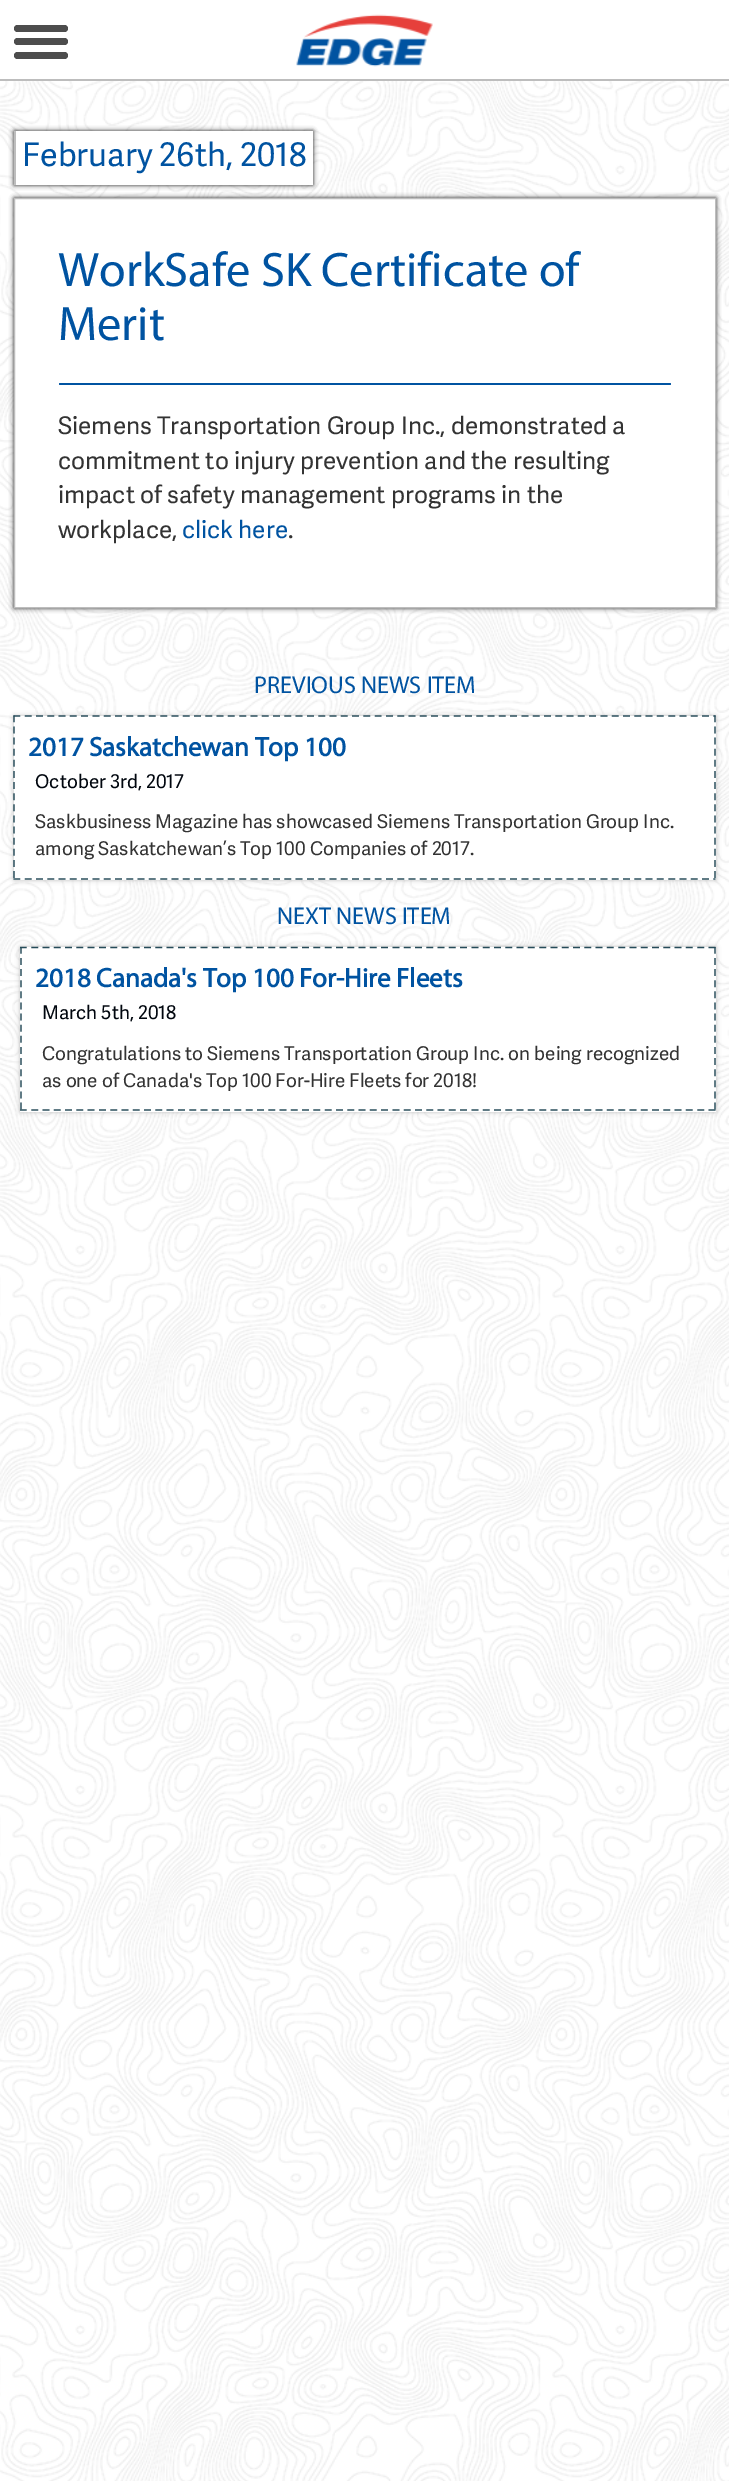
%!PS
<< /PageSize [729 2481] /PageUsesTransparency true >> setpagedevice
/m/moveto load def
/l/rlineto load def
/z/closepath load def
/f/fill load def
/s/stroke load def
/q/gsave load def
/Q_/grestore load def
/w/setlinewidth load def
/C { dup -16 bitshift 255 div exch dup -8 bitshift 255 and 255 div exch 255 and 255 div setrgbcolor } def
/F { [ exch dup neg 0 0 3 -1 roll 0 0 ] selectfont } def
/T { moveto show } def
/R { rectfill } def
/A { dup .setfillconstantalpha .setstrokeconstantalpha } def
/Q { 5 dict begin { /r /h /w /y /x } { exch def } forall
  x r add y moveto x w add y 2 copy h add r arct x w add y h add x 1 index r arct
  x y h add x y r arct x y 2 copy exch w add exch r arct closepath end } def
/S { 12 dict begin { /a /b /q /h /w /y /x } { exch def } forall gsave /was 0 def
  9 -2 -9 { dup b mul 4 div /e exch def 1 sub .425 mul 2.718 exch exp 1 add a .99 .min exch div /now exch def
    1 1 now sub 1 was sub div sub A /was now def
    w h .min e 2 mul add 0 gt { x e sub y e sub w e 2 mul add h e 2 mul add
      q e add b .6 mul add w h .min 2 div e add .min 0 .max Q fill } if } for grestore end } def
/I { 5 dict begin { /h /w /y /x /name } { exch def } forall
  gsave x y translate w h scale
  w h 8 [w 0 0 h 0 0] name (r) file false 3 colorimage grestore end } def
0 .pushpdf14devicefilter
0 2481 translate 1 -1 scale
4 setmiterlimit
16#FFFFFF C
0 0 729 2481 R
16#BDBDBD C
0 79 729 2 R
16#4D4D4D C
14 38 54 7 3.5 Q f
14 25 54 7 3.5 Q f
14 52 54 7 3.5 Q f
(1.rgb) 296 14 137 53 I
(2.rgb) 0 81 729 2400 I
16#212121 C
14 131 299 54 0 2.5 1 S
16#FFFFFF C
14 131 299 54 R
/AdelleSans-Regular 32.5 F
16#0053A1 C
(February 26th, 2018) 22 166 T
16#BDBDBD C
14 131 2 54 1 Q f
16#212121 C
14 198 702 410 0 2.5 1 S
16#FFFFFF C
14.5 198.5 m 701 0 l 0 409 l -701 0 l z q f Q_
16#BDBDBD C
s
/Myriad-Regular 48.6 F
16#0053A1 C
(WorkSafe SK Certificate of) 58 286 T
(Merit) 58 340 T
59 383 612 2 1 Q f
/AdelleSans-Regular 24.3 F
16#333333 C
(Siemens Transportation Group Inc., demonstrated a) 58 434 T
(commitment to injury prevention and the resulting) 58 469 T
(impact of safety management programs in the) 58 503 T
(workplace,) 58 538 T
16#0053A1 C
(click here) 182 538 T
16#333333 C
(.) 288 538 T
/Myriad-Regular 24.3 F
16#0053A1 C
(PREVIOUS NEWS ITEM) 254 693 T
16#BDBDBD C
14 716 702 164 0 2.5 1 S
16#FFFFFF C
14 716 702 164 R
16#264B59 C
1.3 w
[6.75 4.54] 0 setdash
13.5 716 m 702 0 l s
[6.75 4.37] 0 setdash
715 715.5 m 0 164 l s
[6.75 4.54] 0 setdash
13.5 879 m 702 0 l s
[6.75 4.37] 0 setdash
14 715.5 m 0 164 l s
/Myriad-Bold 27 F
16#0053A1 C
(2017 Saskatchewan Top 100) 28 756 T
/AdelleSans-Regular 18.9 F
16#00060E C
(October 3rd, 2017) 35 788 T
16#333333 C
(Saskbusiness Magazine has showcased Siemens Transportation Group Inc.) 35 828 T
(among Saskatchewan’s Top 100 Companies of 2017.) 35 855 T
/Myriad-Regular 24.3 F
16#0053A1 C
(NEXT NEWS ITEM) 277 924 T
16#BDBDBD C
20 947 696 165 0 2.5 1 S
16#FFFFFF C
20 947 696 165 R
16#264B59 C
[6.75 4.54] 0 setdash
20 947.5 m 695.5 0 l s
[6.75 4.37] 0 setdash
715 947 m 0 164 l s
[6.75 4.54] 0 setdash
20 1110 m 695.5 0 l s
[6.75 4.37] 0 setdash
21 947 m 0 164 l s
/Myriad-Bold 27 F
16#0053A1 C
(2018 Canada's Top 100 For-Hire Fleets) 35 987 T
/AdelleSans-Regular 18.9 F
16#00060E C
(March 5th, 2018) 42 1019 T
16#333333 C
(Congratulations to Siemens Transportation Group Inc. on being recognized) 42 1060 T
(as one of Canada's Top 100 For-Hire Fleets for 2018!) 42 1087 T
.poppdf14devicefilter showpage
